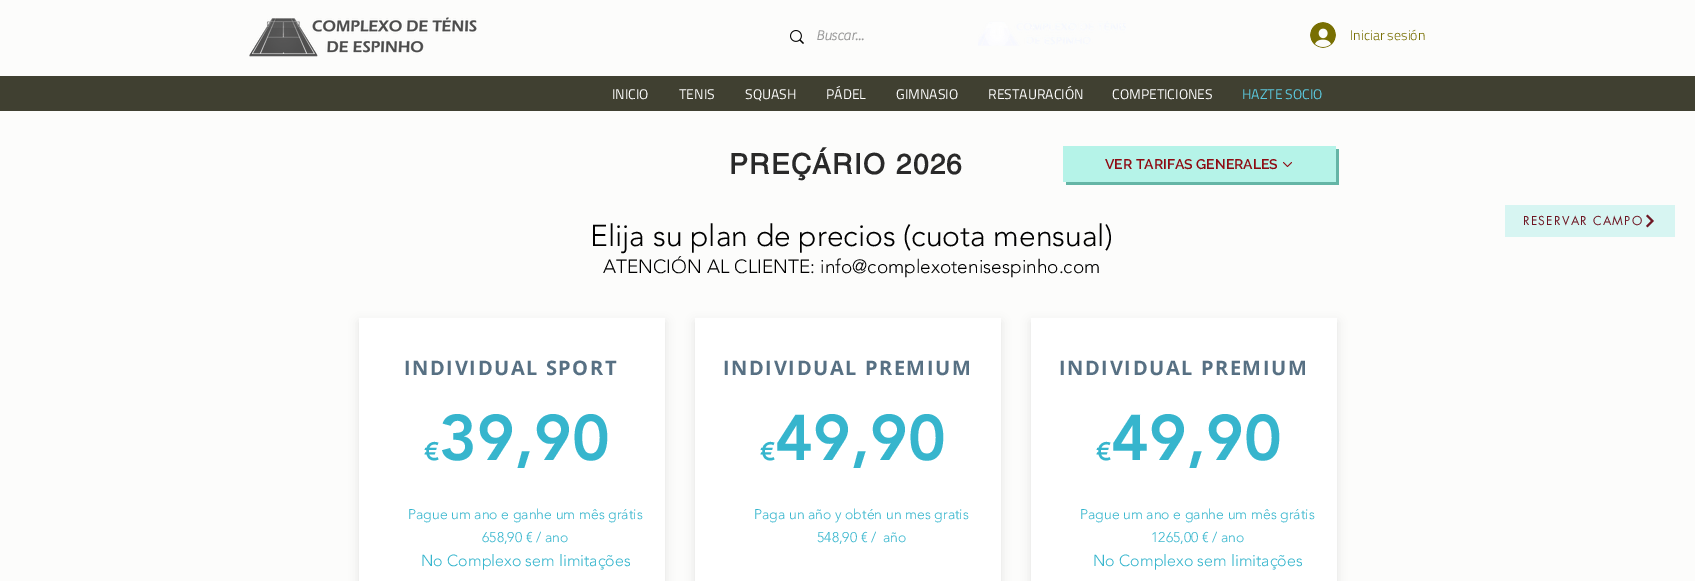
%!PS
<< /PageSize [1695 581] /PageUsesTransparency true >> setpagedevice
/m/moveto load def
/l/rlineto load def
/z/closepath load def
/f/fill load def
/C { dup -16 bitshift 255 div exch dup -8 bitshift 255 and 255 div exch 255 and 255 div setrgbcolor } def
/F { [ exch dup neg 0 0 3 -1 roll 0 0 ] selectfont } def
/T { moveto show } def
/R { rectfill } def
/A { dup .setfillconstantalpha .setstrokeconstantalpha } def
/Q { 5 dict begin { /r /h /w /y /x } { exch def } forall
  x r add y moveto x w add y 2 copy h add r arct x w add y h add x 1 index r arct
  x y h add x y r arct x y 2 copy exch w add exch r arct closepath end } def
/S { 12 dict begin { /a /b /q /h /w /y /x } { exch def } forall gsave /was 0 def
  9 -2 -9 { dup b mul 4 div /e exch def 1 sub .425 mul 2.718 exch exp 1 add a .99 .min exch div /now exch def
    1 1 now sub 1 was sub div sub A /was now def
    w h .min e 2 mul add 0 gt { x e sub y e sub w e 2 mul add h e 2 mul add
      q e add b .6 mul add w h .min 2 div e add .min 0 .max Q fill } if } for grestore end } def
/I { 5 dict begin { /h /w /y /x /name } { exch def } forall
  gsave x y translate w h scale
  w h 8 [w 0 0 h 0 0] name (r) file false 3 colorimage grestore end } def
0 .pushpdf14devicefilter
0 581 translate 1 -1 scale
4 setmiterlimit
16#FCFCFB C
0 0 1695 581 R
(1.rgb) 249 17 228 40 I
(2.rgb) 790 30 14 14 I
/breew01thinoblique-Bold 14 F
16#999999 C
(Buscar...) 816 40 T
(3.rgb) 978 21 148 25 I
(4.rgb) 1310 22 26 26 I
/TitilliumWeb-Light 14 F
16#786F02 C
(Iniciar sesión) 1350 40 T
16#404031 C
0 76 1695 35 R
/TitilliumWeb-Regular 14 F
16#FFFFFF C
(INICIO) 612 99 T
(TENIS) 679 99 T
(SQUASH) 745 99 T
(PÁDEL) 826 99 T
(GIMNASIO) 896 99 T
(RESTAURACIÓN) 988 99 T
(COMPETICIONES) 1112 99 T
16#5BC9DE C
(HAZTE SOCIO) 1242 99 T
/helvetica-Bold 28 F
16#292929 C
729 174 m 1.4 0 (PREÇÁRIO 2026) ashow
16#65B5A6 C
1066 182 m 0 3 l 273 0 l 0 -36 l -3 0 l 0 33 l z f
16#B5F3E8 C
1063 146 273 36 R
/Raleway-SemiBold 14 F
16#8E0A12 C
(VER TARIFAS GENERALES) 1105 169 T
(5.rgb) 1283 162 9 5 I
/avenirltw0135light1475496-Light 30 F
16#000000 C
(Elija su plan de precios \(cuota mensual\)) 590 246 T
/avenirltw0135light1475496-Light 19 F
(ATENCIÓN AL CLIENTE: info@complexotenisespinho.com) 603 273 T
359 322 306 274 0 5 .1 S
16#FFFFFF C
359 318 306 263 R
/OpenSans-Bold 20 F
16#577083 C
404 375 m 1.6 0 (INDIVIDUAL SPORT) ashow
/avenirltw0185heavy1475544-Black 25 F
16#36B5CD C
(€) 424 460 T
/avenirltw0185heavy1475544-Black 64 F
(39,90) 439 460 T
/avenirltw0135light1475496-Light 14 F
(Pague um ano e ganhe um mês grátis) 408 519 T
(658,90 € / ano) 482 542 T
/avenirltw0135light1475496-Light 16 F
(No Complexo sem limitações) 421 566 T
16#000000 C
695 322 306 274 0 5 .1 S
16#FFFFFF C
695 318 306 263 R
/OpenSans-Bold 20 F
16#577083 C
723 375 m 1.6 0 (INDIVIDUAL PREMIUM) ashow
/avenirltw0185heavy1475544-Black 25 F
16#36B5CD C
(€) 760 460 T
/avenirltw0185heavy1475544-Black 64 F
(49,90) 775 460 T
/avenirltw0135light1475496-Light 14 F
(Paga un año y obtén un mes gratis) 754 519 T
(548,90 € /) 817 542 T
(año) 883 542 T
16#000000 C
1031 322 306 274 0 5 .1 S
16#FFFFFF C
1031 318 306 263 R
/OpenSans-Bold 20 F
16#577083 C
1059 375 m 1.6 0 (INDIVIDUAL PREMIUM) ashow
/avenirltw0185heavy1475544-Black 25 F
16#36B5CD C
(€) 1096 460 T
/avenirltw0185heavy1475544-Black 64 F
(49,90) 1111 460 T
/avenirltw0135light1475496-Light 14 F
(Pague um ano e ganhe um mês grátis) 1080 519 T
(1265,00 € / ano) 1151 542 T
/avenirltw0135light1475496-Light 16 F
(No Complexo sem limitações) 1093 566 T
16#D7F5F2 C
1505 205 170 32 R
/futura-Regular 12 F
16#6E1623 C
1523 225 m 1.25 0 (RESERVAR CAMPO) ashow
(6.rgb) 1646 214 8 14 I
.poppdf14devicefilter showpage
